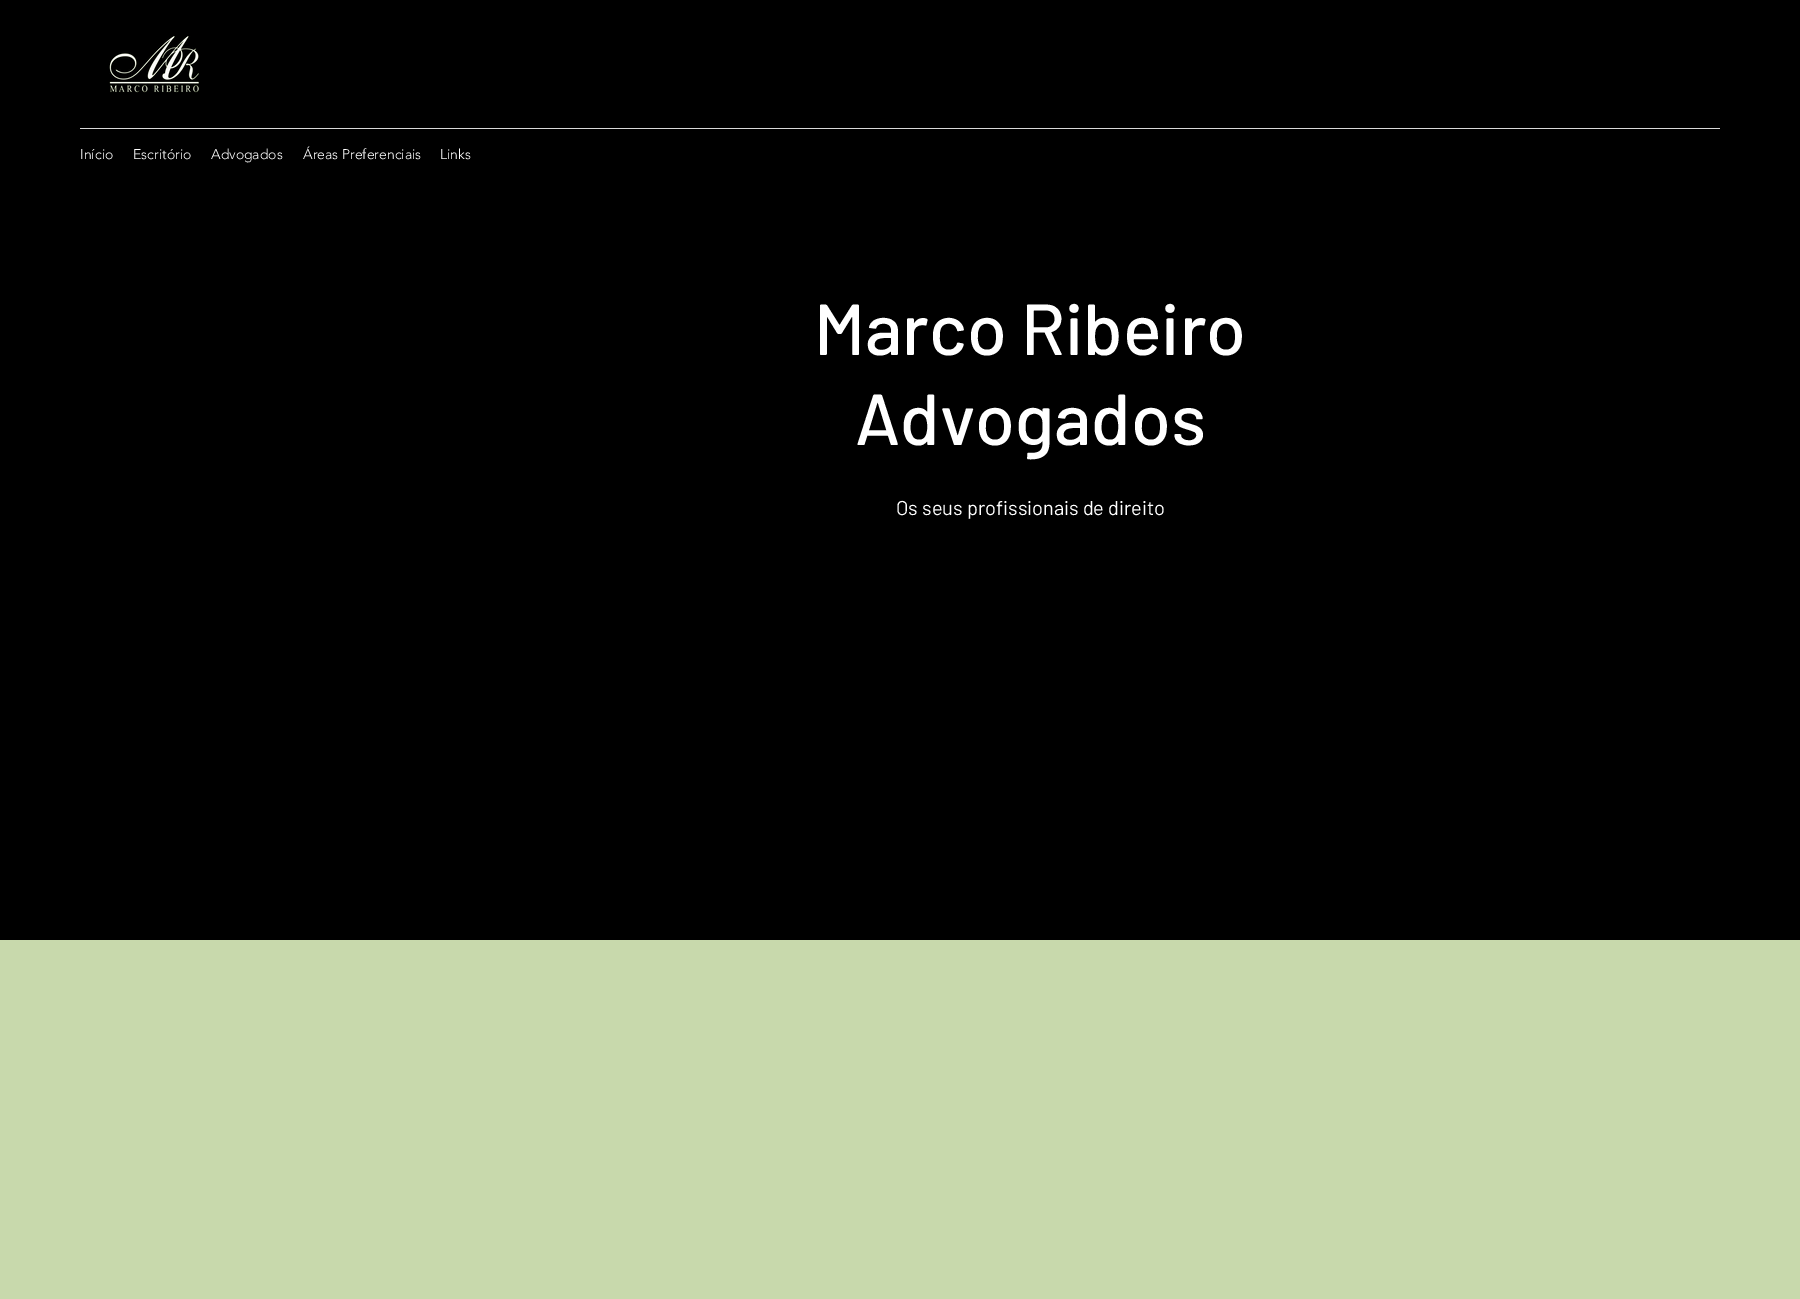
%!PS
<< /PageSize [1800 1299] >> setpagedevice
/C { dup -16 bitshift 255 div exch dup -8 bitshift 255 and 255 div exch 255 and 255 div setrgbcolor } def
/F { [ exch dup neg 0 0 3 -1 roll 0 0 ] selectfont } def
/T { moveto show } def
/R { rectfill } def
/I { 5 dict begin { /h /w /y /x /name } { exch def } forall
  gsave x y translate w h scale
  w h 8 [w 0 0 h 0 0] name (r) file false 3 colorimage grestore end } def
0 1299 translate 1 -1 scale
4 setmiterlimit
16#000000 C
0 0 1800 1299 R
(1.rgb) 109 36 90 57 I
16#D9D9D9 C
80 128 1640 1 R
/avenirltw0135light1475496-Light 14 F
16#FFFFFF C
(Início) 80 159 T
(Escritório) 133 159 T
(Advogados) 211 159 T
(Áreas Preferenciais) 303 159 T
(Links) 440 159 T
/Barlow-Medium 72 F
(Marco Ribeiro) 814 355 T
(Advogados) 855 445 T
/Barlow-Regular 20 F
(Os seus profissionais de direito) 896 515 T
16#C8D9AC C
0 940 1800 359 R
showpage
